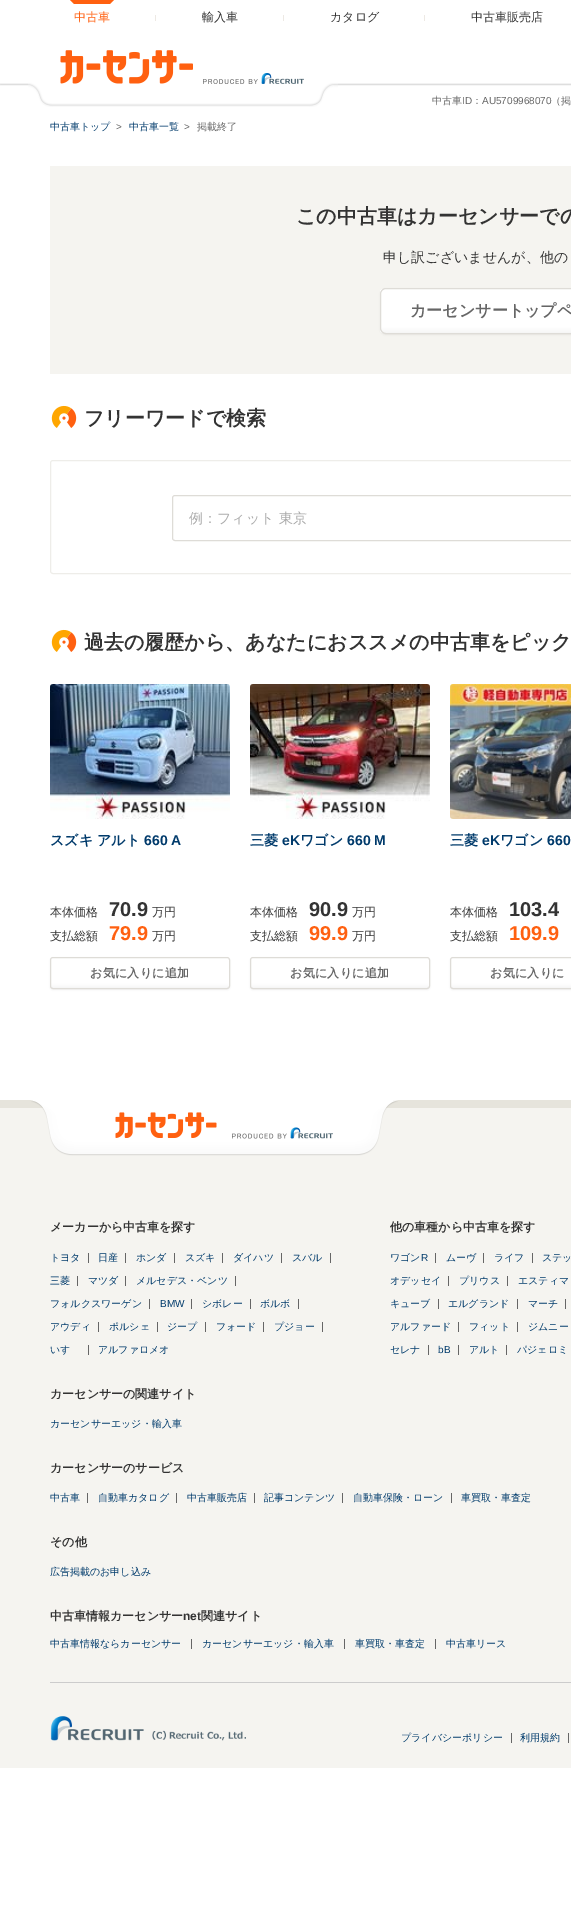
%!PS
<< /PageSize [571 1930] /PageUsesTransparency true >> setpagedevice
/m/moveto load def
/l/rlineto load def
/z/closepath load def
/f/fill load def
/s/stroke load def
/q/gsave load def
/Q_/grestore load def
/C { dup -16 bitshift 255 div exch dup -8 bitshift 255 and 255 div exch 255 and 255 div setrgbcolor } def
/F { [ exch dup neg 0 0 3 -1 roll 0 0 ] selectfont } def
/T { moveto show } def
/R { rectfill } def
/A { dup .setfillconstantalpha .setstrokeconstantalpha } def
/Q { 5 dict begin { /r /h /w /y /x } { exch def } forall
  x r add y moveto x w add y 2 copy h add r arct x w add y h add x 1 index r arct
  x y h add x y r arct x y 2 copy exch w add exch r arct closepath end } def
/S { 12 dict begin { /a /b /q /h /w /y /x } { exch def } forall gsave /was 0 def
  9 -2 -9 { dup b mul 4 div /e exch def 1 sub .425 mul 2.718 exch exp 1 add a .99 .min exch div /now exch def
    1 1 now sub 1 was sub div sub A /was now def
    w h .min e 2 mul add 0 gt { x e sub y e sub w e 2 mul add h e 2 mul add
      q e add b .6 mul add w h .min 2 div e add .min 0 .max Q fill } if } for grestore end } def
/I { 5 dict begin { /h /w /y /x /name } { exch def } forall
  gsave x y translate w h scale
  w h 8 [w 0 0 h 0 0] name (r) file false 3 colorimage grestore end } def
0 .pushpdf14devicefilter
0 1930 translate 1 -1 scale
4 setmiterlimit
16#FFFFFF C
0 0 571 1930 R
q
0 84 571 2 rectclip
16#D9D9D9 C
0 1 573 84 0 .5 1 S
Q_
16#F2F2F2 C
0 83 571 1 R
16#FF6010 C
70 0 m 44 0 l -4 4 l -36 0 l z f
/WenQuanYiZenHei-Medium 12 F
(中古車) 74 21 T
16#EDE9E4 C
155 15 1 6 R
16#333333 C
(輸入車) 202 21 T
16#EDE9E4 C
283 15 1 6 R
16#333333 C
(カタログ) 330 21 T
16#EDE9E4 C
424 15 1 6 R
16#333333 C
(中古車販売店) 471 21 T
(1.rgb) 28 50 310 57 I
/WenQuanYiZenHei-Medium 10 F
16#666666 C
(中古車) 432 104 T
/LiberationSans-Regular 10 F
(ID) 462 104 T
/WenQuanYiZenHei-Medium 10 F
(：) 472 104 T
/LiberationSans-Regular 10 F
(AU5709968070) 482 104 T
/WenQuanYiZenHei-Medium 10 F
(（掲) 551 104 T
16#003A6B C
(中古車トップ) 50 130 T
/LiberationSans-Regular 10 F
16#666666 C
(>) 116 130 T
/WenQuanYiZenHei-Medium 10 F
16#003A6B C
(中古車一覧) 129 130 T
/LiberationSans-Regular 10 F
16#666666 C
(>) 184 130 T
/WenQuanYiZenHei-Medium 10 F
(掲載終了) 197 130 T
16#F5F4F0 C
50 166 521 208 R
/WenQuanYiZenHei-Bold 20 F
16#333333 C
(この中古車はカーセンサーでの) 296 223 T
/WenQuanYiZenHei-Medium 14 F
(申し訳ございませんが、他の) 383 262 T
16#000000 C
380 289 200 46 6 1 .06 S
q
380 288 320 46 6 Q clip newpath
q 380 289 m 191 0 l 0 44 l -191 0 l z clip newpath
<< /ShadingType 2 /ColorSpace /DeviceRGB /Coords [540 289 540 333] /Extend [true true] /Function << /FunctionType 3 /Domain [0 1] /Functions [<< /FunctionType 2 /Domain [0 1] /C0 [1 1 1] /C1 [1 1 1] /N 1 >> << /FunctionType 2 /Domain [0 1] /C0 [1 1 1] /C1 [.965 .965 .965] /N 1 >>] /Bounds [.85] /Encode [0 1 0 1] >> >> shfill Q_
Q_
16#DEDCD7 C
380.5 288.5 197 45 5.5 Q s
/WenQuanYiZenHei-Bold 16 F
16#666666 C
(カーセンサートップペ) 410 316 T
(2.rgb) 51 405 26 23 I
/WenQuanYiZenHei-Bold 20 F
16#333333 C
(フリーワードで検索) 84 425 T
16#EEEDE9 C
50.5 460.5 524 113 2.5 Q s
16#DEDCD7 C
172.5 495.5 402 45 2.5 Q s
/WenQuanYiZenHei-Medium 14 F
16#AAAAAA C
(例：フィット 東京) 189 523 T
(2.rgb) 51 629 26 23 I
/WenQuanYiZenHei-Bold 20 F
16#333333 C
(過去の履歴から、あなたにおススメの中古車をピック) 84 649 T
(3.rgb) 50 684 180 135 I
/WenQuanYiZenHei-Bold 14 F
16#003A6B C
(スズキ) 50 845 T
(アルト) 97 845 T
/LiberationSans-Bold 14 F
(660 A) 144 845 T
/WenQuanYiZenHei-Medium 12 F
16#333333 C
(本体価格) 50 916 T
/LiberationSans-Bold 20 F
(70.9) 109 916 T
/WenQuanYiZenHei-Medium 12 F
(万円) 152 916 T
(支払総額) 50 940 T
/LiberationSans-Bold 20 F
16#FF6010 C
(79.9) 109 940 T
/WenQuanYiZenHei-Medium 12 F
16#333333 C
(万円) 152 940 T
16#000000 C
50 958 180 32 3 1 .06 S
q
50 957 180 32 3 Q clip newpath
q 50 958 m 180 0 l 0 30 l -180 0 l z clip newpath
<< /ShadingType 2 /ColorSpace /DeviceRGB /Coords [140 958 140 988] /Extend [true true] /Function << /FunctionType 3 /Domain [0 1] /Functions [<< /FunctionType 2 /Domain [0 1] /C0 [1 1 1] /C1 [1 1 1] /N 1 >> << /FunctionType 2 /Domain [0 1] /C0 [1 1 1] /C1 [.965 .965 .965] /N 1 >>] /Bounds [.85] /Encode [0 1 0 1] >> >> shfill Q_
Q_
16#DEDCD7 C
50.5 957.5 179 31 2.5 Q s
/WenQuanYiZenHei-Bold 12 F
16#666666 C
90 977 m .25 0 (お気に入りに追加) ashow
(4.rgb) 250 684 180 135 I
/WenQuanYiZenHei-Bold 14 F
16#003A6B C
(三菱) 250 845 T
/LiberationSans-Bold 14 F
(eK) 282 845 T
/WenQuanYiZenHei-Bold 14 F
(ワゴン) 300 845 T
/LiberationSans-Bold 14 F
(660 M) 347 845 T
/WenQuanYiZenHei-Medium 12 F
16#333333 C
(本体価格) 250 916 T
/LiberationSans-Bold 20 F
(90.9) 309 916 T
/WenQuanYiZenHei-Medium 12 F
(万円) 352 916 T
(支払総額) 250 940 T
/LiberationSans-Bold 20 F
16#FF6010 C
(99.9) 309 940 T
/WenQuanYiZenHei-Medium 12 F
16#333333 C
(万円) 352 940 T
16#000000 C
250 958 180 32 3 1 .06 S
q
250 957 180 32 3 Q clip newpath
q 250 958 m 180 0 l 0 30 l -180 0 l z clip newpath
<< /ShadingType 2 /ColorSpace /DeviceRGB /Coords [340 958 340 988] /Extend [true true] /Function << /FunctionType 3 /Domain [0 1] /Functions [<< /FunctionType 2 /Domain [0 1] /C0 [1 1 1] /C1 [1 1 1] /N 1 >> << /FunctionType 2 /Domain [0 1] /C0 [1 1 1] /C1 [.965 .965 .965] /N 1 >>] /Bounds [.85] /Encode [0 1 0 1] >> >> shfill Q_
Q_
16#DEDCD7 C
250.5 957.5 179 31 2.5 Q s
/WenQuanYiZenHei-Bold 12 F
16#666666 C
290 977 m .25 0 (お気に入りに追加) ashow
(5.rgb) 450 684 121 135 I
/WenQuanYiZenHei-Bold 14 F
16#003A6B C
(三菱) 450 845 T
/LiberationSans-Bold 14 F
(eK) 482 845 T
/WenQuanYiZenHei-Bold 14 F
(ワゴン) 500 845 T
/LiberationSans-Bold 14 F
(660) 547 845 T
/WenQuanYiZenHei-Medium 12 F
16#333333 C
(本体価格) 450 916 T
/LiberationSans-Bold 20 F
(103.4) 509 916 T
/WenQuanYiZenHei-Medium 12 F
(支払総額) 450 940 T
/LiberationSans-Bold 20 F
16#FF6010 C
(109.9) 509 940 T
16#000000 C
450 958 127 32 3 1 .06 S
q
450 957 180 32 3 Q clip newpath
q 450 958 m 121 0 l 0 30 l -121 0 l z clip newpath
<< /ShadingType 2 /ColorSpace /DeviceRGB /Coords [540 958 540 988] /Extend [true true] /Function << /FunctionType 3 /Domain [0 1] /Functions [<< /FunctionType 2 /Domain [0 1] /C0 [1 1 1] /C1 [1 1 1] /N 1 >> << /FunctionType 2 /Domain [0 1] /C0 [1 1 1] /C1 [.965 .965 .965] /N 1 >>] /Bounds [.85] /Encode [0 1 0 1] >> >> shfill Q_
Q_
16#DEDCD7 C
450.5 957.5 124 31 2.5 Q s
/WenQuanYiZenHei-Bold 12 F
16#666666 C
490 977 m .25 0 (お気に入りに) ashow
16#F5F4F0 C
0 1108 571 660 R
16#E6E4DC C
0 1100 571 8 R
(6.rgb) 31 1100 367 56 I
16#333333 C
(メーカーから中古車を探す) 50 1231 T
16#666666 C
88 1253 1 10 R
/WenQuanYiZenHei-Medium 10 F
16#003A6B C
(トヨタ) 50 1261 T
16#666666 C
125 1253 1 10 R
16#003A6B C
(日産) 98 1261 T
16#666666 C
174 1253 1 10 R
16#003A6B C
(ホンダ) 136 1261 T
16#666666 C
222 1253 1 10 R
16#003A6B C
(スズキ) 185 1261 T
16#666666 C
281 1253 1 10 R
16#003A6B C
(ダイハツ) 233 1261 T
16#666666 C
330 1253 1 10 R
16#003A6B C
(スバル) 292 1261 T
16#666666 C
77 1276 1 10 R
16#003A6B C
(三菱) 50 1284 T
16#666666 C
125 1276 1 10 R
16#003A6B C
(マツダ) 88 1284 T
16#666666 C
235 1276 1 10 R
16#003A6B C
(メルセデス・ベンツ) 136 1284 T
16#666666 C
149 1299 1 10 R
16#003A6B C
(フォルクスワーゲン) 50 1307 T
16#666666 C
191 1299 1 10 R
/LiberationSans-Regular 10 F
16#003A6B C
(BMW) 160 1307 T
16#666666 C
250 1299 1 10 R
/WenQuanYiZenHei-Medium 10 F
16#003A6B C
(シボレー) 202 1307 T
16#666666 C
298 1299 1 10 R
16#003A6B C
(ボルボ) 260 1307 T
16#666666 C
98 1322 1 10 R
16#003A6B C
(アウディ) 50 1330 T
16#666666 C
157 1322 1 10 R
16#003A6B C
(ポルシェ) 109 1330 T
16#666666 C
205 1322 1 10 R
16#003A6B C
(ジープ) 167 1330 T
16#666666 C
263 1322 1 10 R
16#003A6B C
(フォード) 216 1330 T
16#666666 C
322 1322 1 10 R
16#003A6B C
(プジョー) 274 1330 T
16#666666 C
88 1345 1 10 R
16#003A6B C
(いすゞ) 50 1353 T
(アルファロメオ) 98 1353 T
/WenQuanYiZenHei-Bold 12 F
16#333333 C
(他の車種から中古車を探す) 390 1231 T
16#666666 C
435 1253 1 10 R
/WenQuanYiZenHei-Medium 10 F
16#003A6B C
(ワゴン) 390 1261 T
/LiberationSans-Regular 10 F
(R) 421 1261 T
16#666666 C
483 1253 1 10 R
/WenQuanYiZenHei-Medium 10 F
16#003A6B C
(ムーヴ) 446 1261 T
16#666666 C
532 1253 1 10 R
16#003A6B C
(ライフ) 494 1261 T
(ステッ) 542 1261 T
16#666666 C
448 1276 1 10 R
16#003A6B C
(オデッセイ) 390 1284 T
16#666666 C
507 1276 1 10 R
16#003A6B C
(プリウス) 459 1284 T
(エスティマ) 518 1284 T
16#666666 C
438 1299 1 10 R
16#003A6B C
(キューブ) 390 1307 T
16#666666 C
517 1299 1 10 R
16#003A6B C
(エルグランド) 448 1307 T
16#666666 C
565 1299 1 10 R
16#003A6B C
(マーチ) 528 1307 T
16#666666 C
458 1322 1 10 R
16#003A6B C
(アルファード) 390 1330 T
16#666666 C
517 1322 1 10 R
16#003A6B C
(フィット) 469 1330 T
(ジムニー) 528 1330 T
16#666666 C
428 1345 1 10 R
16#003A6B C
(セレナ) 390 1353 T
16#666666 C
458 1345 1 10 R
/LiberationSans-Regular 10 F
16#003A6B C
(bB) 438 1353 T
16#666666 C
506 1345 1 10 R
/WenQuanYiZenHei-Medium 10 F
16#003A6B C
(アルト) 469 1353 T
(パジェロミ) 517 1353 T
/WenQuanYiZenHei-Bold 12 F
16#333333 C
(カーセンサーの関連サイト) 50 1398 T
/WenQuanYiZenHei-Medium 10 F
16#003A6B C
(カーセンサーエッジ・輸入車) 50 1427 T
/WenQuanYiZenHei-Bold 12 F
16#333333 C
(カーセンサーのサービス) 50 1472 T
16#666666 C
87 1493 1 10 R
/WenQuanYiZenHei-Medium 10 F
16#003A6B C
(中古車) 50 1501 T
16#666666 C
176 1493 1 10 R
16#003A6B C
(自動車カタログ) 98 1501 T
16#666666 C
254 1493 1 10 R
16#003A6B C
(中古車販売店) 187 1501 T
16#666666 C
342 1493 1 10 R
16#003A6B C
(記事コンテンツ) 264 1501 T
16#666666 C
451 1493 1 10 R
16#003A6B C
(自動車保険・ローン) 353 1501 T
(車買取・車査定) 461 1501 T
/WenQuanYiZenHei-Bold 12 F
16#333333 C
(その他) 50 1546 T
/WenQuanYiZenHei-Medium 10 F
16#003A6B C
(広告掲載のお申し込み) 50 1575 T
16#CCCCCC C
50 1682 521 1 R
/WenQuanYiZenHei-Bold 12 F
16#333333 C
(中古車情報カーセンサー) 50 1620 T
/LiberationSans-Bold 12 F
(net) 183 1620 T
/WenQuanYiZenHei-Bold 12 F
(関連サイト) 201 1620 T
/WenQuanYiZenHei-Medium 10 F
16#003A6B C
(中古車情報ならカーセンサー) 50 1647 T
16#666666 C
191 1639 1 10 R
16#003A6B C
(カーセンサーエッジ・輸入車) 202 1647 T
16#666666 C
344 1639 1 10 R
16#003A6B C
(車買取・車査定) 355 1647 T
16#666666 C
435 1639 1 10 R
16#003A6B C
(中古車リース) 446 1647 T
(7.rgb) 50 1716 196 25 I
(プライバシーポリシー) 401 1741 T
16#666666 C
511 1733 1 10 R
16#003A6B C
(利用規約) 520 1741 T
16#666666 C
568 1733 1 10 R
.poppdf14devicefilter showpage
